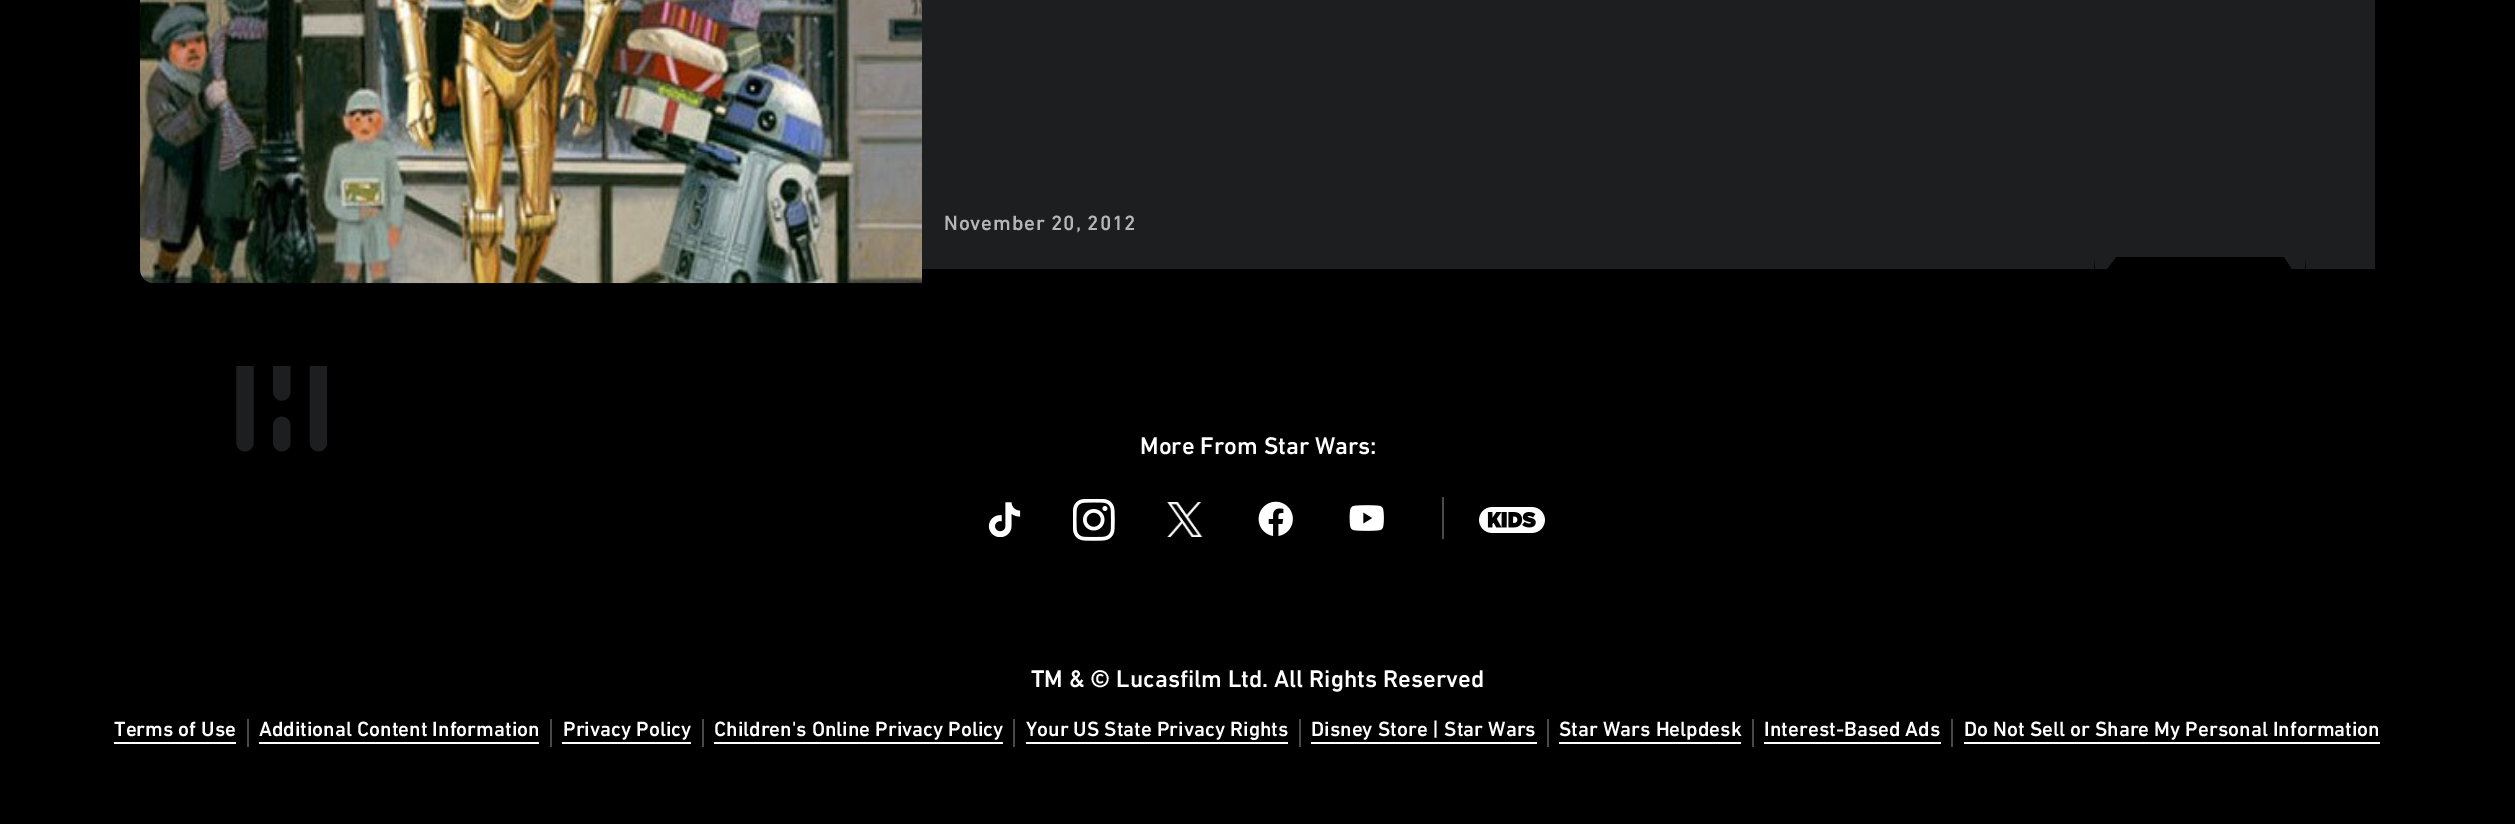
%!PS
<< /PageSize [2515 824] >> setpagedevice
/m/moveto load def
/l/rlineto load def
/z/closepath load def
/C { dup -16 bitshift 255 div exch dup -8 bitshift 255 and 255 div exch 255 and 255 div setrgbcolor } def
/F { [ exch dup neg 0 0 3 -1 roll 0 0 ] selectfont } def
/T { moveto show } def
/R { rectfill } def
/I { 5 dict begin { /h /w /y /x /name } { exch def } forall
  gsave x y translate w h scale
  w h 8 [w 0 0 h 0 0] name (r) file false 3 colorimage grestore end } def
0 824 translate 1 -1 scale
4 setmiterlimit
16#000000 C
0 0 2515 824 R
(1.rgb) 140 0 782 284 I
16#1D1E1F C
922 0 1453 257 R
/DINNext-Medium 21 F
16#B5B7B7 C
944 230 m .8 0 (November 20, 2012) ashow
16#1D1E1F C
2116 257 m -21 0 l 0 12 l 12 0 l z 2094 269 m 1 -12 l -1173 0 l 0 12 l z eofill
2375 257 m -70 0 l 1 12 l 69 0 l z 2305 269 m 0 -12 l -21 0 l 8 12 l z eofill
(2.rgb) 236 366 91 86 I
/DINNext-Medium 24.5 F
16#FFFFFF C
(More From Star Wars:) 1140 454 T
(3.rgb) 988 502 33 35 I
(4.rgb) 1073 499 42 42 I
(5.rgb) 1167 502 36 35 I
(6.rgb) 1258 501 35 35 I
(7.rgb) 1349 505 35 26 I
(8.rgb) 1479 507 66 26 I
16#48494A C
1442 497 2 42 R
/DINNext-Medium 21 F
16#FFFFFF C
(Terms of Use) 114 736 T
114 742 122 2 R
16#48494A C
247 719 2 28 R
16#FFFFFF C
(Additional Content Information) 259 736 T
259 742 280 2 R
16#48494A C
550 719 2 28 R
16#FFFFFF C
(Privacy Policy) 563 736 T
562 742 129 2 R
16#48494A C
702 719 2 28 R
16#FFFFFF C
(Children's Online Privacy Policy) 714 736 T
714 742 289 2 R
16#48494A C
1013 719 2 28 R
16#FFFFFF C
(Your US State Privacy Rights) 1026 736 T
1026 742 262 2 R
16#48494A C
1299 719 2 28 R
16#FFFFFF C
(Disney Store | Star Wars) 1311 736 T
1311 742 226 2 R
16#48494A C
1547 719 2 28 R
16#FFFFFF C
(Star Wars Helpdesk) 1559 736 T
1559 742 182 2 R
16#48494A C
1752 719 2 28 R
16#FFFFFF C
(Interest-Based Ads) 1764 736 T
1764 742 177 2 R
16#48494A C
1951 719 2 28 R
16#FFFFFF C
(Do Not Sell or Share My Personal Information) 1964 736 T
1964 742 416 2 R
/DINNext-Medium 24.5 F
(TM & © Lucasfilm Ltd. All Rights Reserved) 1031 687 T
showpage
